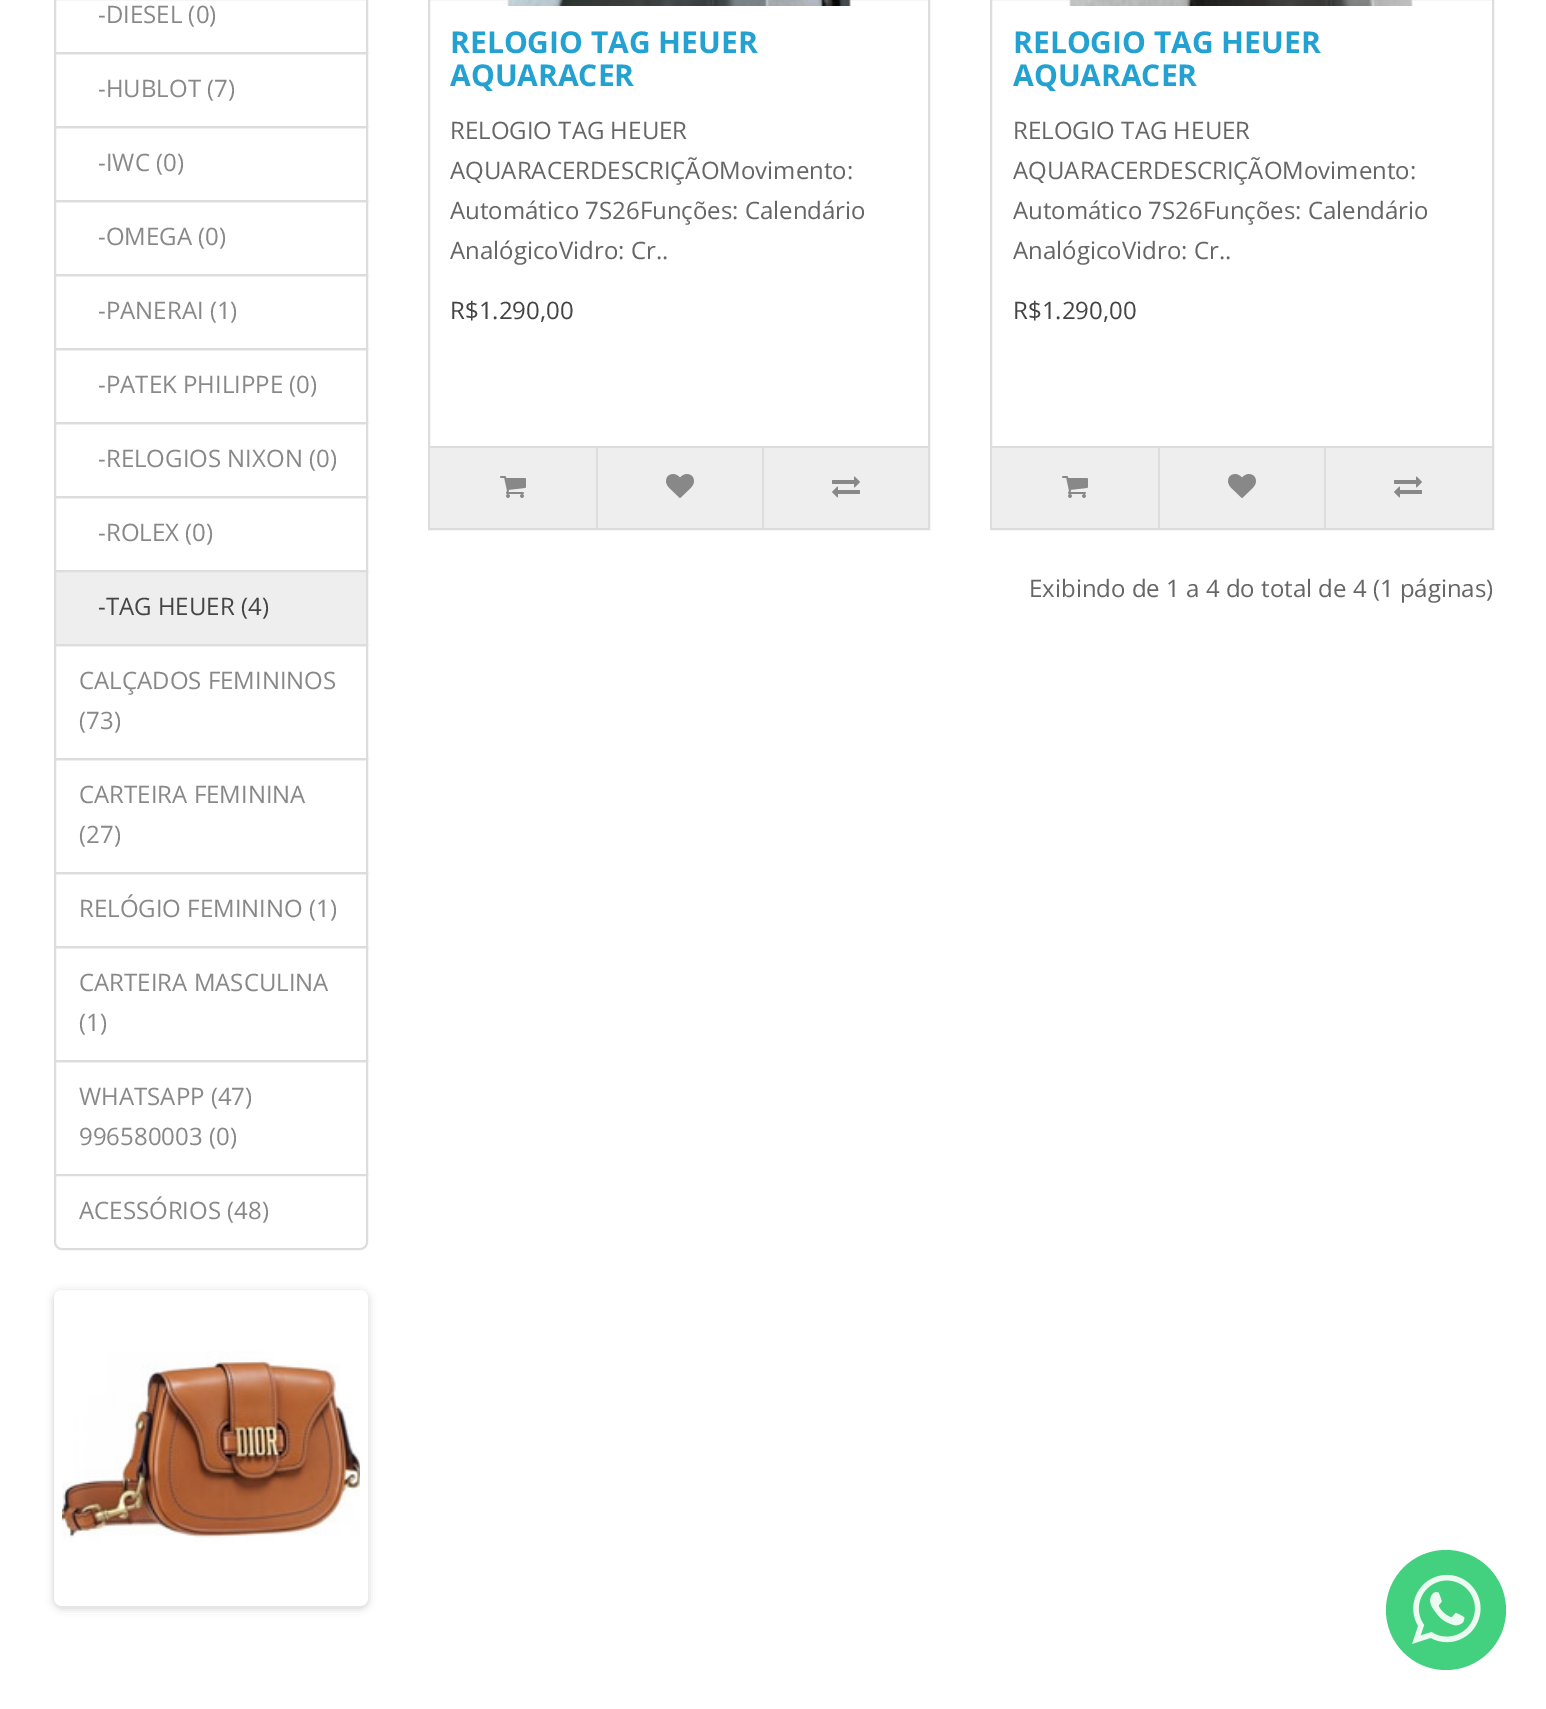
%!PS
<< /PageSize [1546 1709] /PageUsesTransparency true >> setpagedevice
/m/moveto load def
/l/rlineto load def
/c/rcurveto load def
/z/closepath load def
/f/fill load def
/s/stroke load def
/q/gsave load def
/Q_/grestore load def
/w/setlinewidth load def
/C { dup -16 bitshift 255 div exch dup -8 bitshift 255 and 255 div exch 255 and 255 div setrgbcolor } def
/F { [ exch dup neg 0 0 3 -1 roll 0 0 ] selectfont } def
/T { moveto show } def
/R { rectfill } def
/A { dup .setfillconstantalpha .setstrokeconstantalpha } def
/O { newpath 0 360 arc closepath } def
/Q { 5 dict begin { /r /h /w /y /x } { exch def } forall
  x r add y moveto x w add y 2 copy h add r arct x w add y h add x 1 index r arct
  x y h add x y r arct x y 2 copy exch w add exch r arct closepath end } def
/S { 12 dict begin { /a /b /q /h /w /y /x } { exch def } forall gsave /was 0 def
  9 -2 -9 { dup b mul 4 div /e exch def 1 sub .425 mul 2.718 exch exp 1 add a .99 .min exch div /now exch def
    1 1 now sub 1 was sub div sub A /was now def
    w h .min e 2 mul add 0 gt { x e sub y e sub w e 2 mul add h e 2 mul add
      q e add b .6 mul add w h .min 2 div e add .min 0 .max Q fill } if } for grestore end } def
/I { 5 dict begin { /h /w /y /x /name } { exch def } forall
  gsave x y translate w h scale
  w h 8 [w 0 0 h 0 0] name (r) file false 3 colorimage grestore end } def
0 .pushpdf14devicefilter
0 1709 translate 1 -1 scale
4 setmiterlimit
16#FFFFFF C
0 0 1546 1709 R
16#DDDDDD C
2 w
55 -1 312 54 rectstroke
/OpenSans-Regular 24 F
16#888888 C
(-DIESEL \(0\)) 98 23 T
16#DDDDDD C
55 53 312 74 rectstroke
16#888888 C
(-HUBLOT \(7\)) 98 97 T
16#DDDDDD C
55 127 312 74 rectstroke
16#888888 C
(-IWC \(0\)) 98 171 T
16#DDDDDD C
55 201 312 74 rectstroke
16#888888 C
(-OMEGA \(0\)) 98 245 T
16#DDDDDD C
55 275 312 74 rectstroke
16#888888 C
(-PANERAI \(1\)) 98 319 T
16#DDDDDD C
55 349 312 74 rectstroke
16#888888 C
(-PATEK PHILIPPE \(0\)) 98 393 T
16#DDDDDD C
55 423 312 74 rectstroke
16#888888 C
(-RELOGIOS NIXON \(0\)) 98 467 T
16#DDDDDD C
55 497 312 74 rectstroke
16#888888 C
(-ROLEX \(0\)) 98 541 T
16#DDDDDD C
55 645 312 114 rectstroke
16#EEEEEE C
55 571 m 312 0 l 0 74 l -312 0 l z q f Q_
16#DDDDDD C
s
16#444444 C
(-TAG HEUER \(4\)) 98 615 T
16#888888 C
(CALÇADOS FEMININOS) 79 689 T
(\(73\)) 79 729 T
16#DDDDDD C
55 759 312 114 rectstroke
16#888888 C
(CARTEIRA FEMININA) 79 803 T
(\(27\)) 79 843 T
16#DDDDDD C
55 873 312 74 rectstroke
16#888888 C
(RELÓGIO FEMININO \(1\)) 79 917 T
16#DDDDDD C
55 947 312 114 rectstroke
16#888888 C
(CARTEIRA MASCULINA) 79 991 T
(\(1\)) 79 1031 T
16#DDDDDD C
55 1061 312 114 rectstroke
16#888888 C
(WHATSAPP \(47\)) 79 1105 T
(996580003 \(0\)) 79 1145 T
16#FFFFFF C
55 1175 m 312 0 l 0 67 l 0 4 -3 7 -7 7 c -298 0 l -4 0 -7 -3 -7 -7 c z q f Q_
16#DDDDDD C
s
16#888888 C
(ACESSÓRIOS \(48\)) 79 1219 T
16#000000 C
54 1292 314 316 8 4 .2 S
16#FFFFFF C
58 1294 306 308 4 Q q f Q_
8 w
s
(1.rgb) 62 1351 298 191 I
16#DDDDDD C
2 w
429 -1 500 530 rectstroke
(2.rgb) 507 0 344 6 I
/OpenSans-Bold 30 F
16#23A1D1 C
(RELOGIO TAG HEUER) 450 53 T
(AQUARACER) 450 86 T
/OpenSans-Regular 24 F
16#666666 C
(RELOGIO TAG HEUER) 450 139 T
(AQUARACERDESCRIÇÃOMovimento:) 450 179 T
(Automático 7S26Funções: Calendário) 450 219 T
(AnalógicoVidro: Cr..) 450 259 T
16#444444 C
(R$1.290,00) 450 319 T
16#EEEEEE C
430 448 498 80 R
16#DDDDDD C
430 446 498 2 R
(3.rgb) 500 476 26 22 I
596 448 2 80 R
(4.rgb) 666 474 28 24 I
762 448 2 80 R
(5.rgb) 832 476 28 22 I
991 -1 502 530 rectstroke
(6.rgb) 1069 0 344 6 I
/OpenSans-Bold 30 F
16#23A1D1 C
(RELOGIO TAG HEUER) 1013 53 T
(AQUARACER) 1013 86 T
/OpenSans-Regular 24 F
16#666666 C
(RELOGIO TAG HEUER) 1013 139 T
(AQUARACERDESCRIÇÃOMovimento:) 1013 179 T
(Automático 7S26Funções: Calendário) 1013 219 T
(AnalógicoVidro: Cr..) 1013 259 T
16#444444 C
(R$1.290,00) 1013 319 T
16#EEEEEE C
992 448 500 80 R
16#DDDDDD C
992 446 500 2 R
(3.rgb) 1062 476 26 22 I
1158 448 2 80 R
(4.rgb) 1228 474 28 24 I
1324 448 2 80 R
(5.rgb) 1394 476 28 22 I
16#666666 C
(Exibindo de 1 a 4 do total de 4 \(1 páginas\)) 1029 597 T
16#43D17F C
1446 1610 60 O f
(7.rgb) 1412 1574 69 70 I
.poppdf14devicefilter showpage
